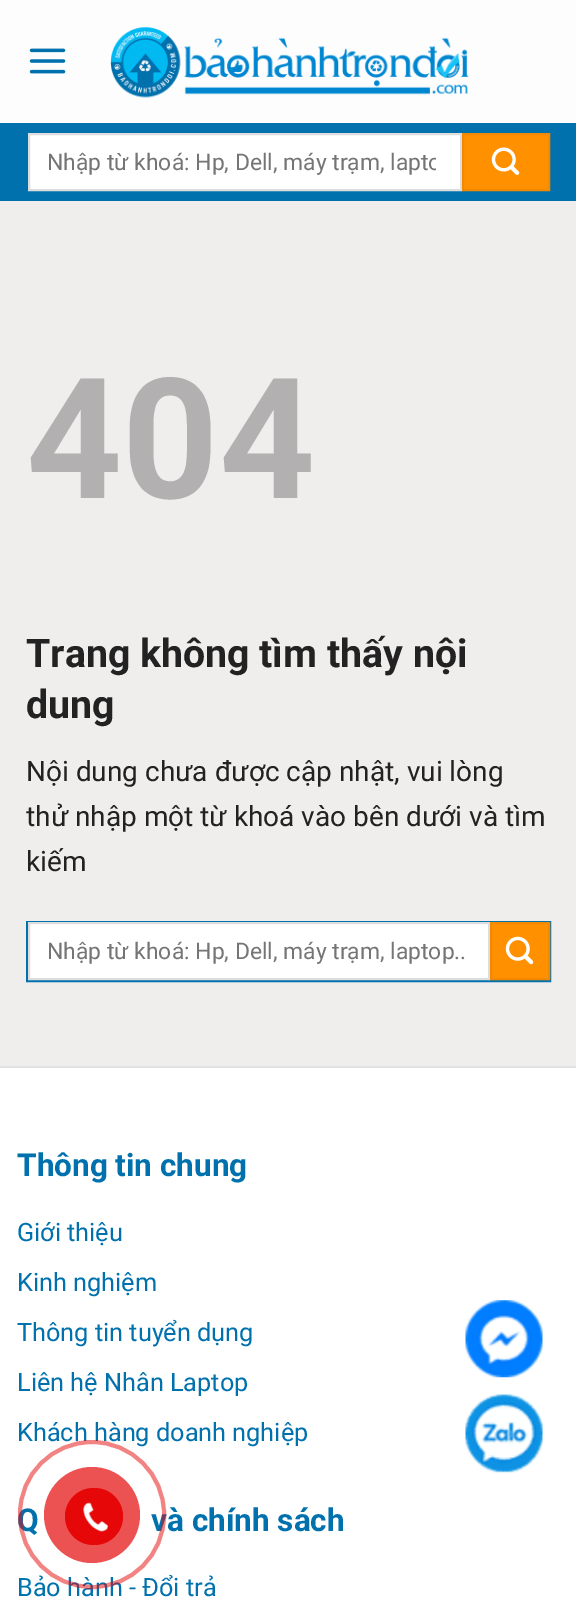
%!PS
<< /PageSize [576 1614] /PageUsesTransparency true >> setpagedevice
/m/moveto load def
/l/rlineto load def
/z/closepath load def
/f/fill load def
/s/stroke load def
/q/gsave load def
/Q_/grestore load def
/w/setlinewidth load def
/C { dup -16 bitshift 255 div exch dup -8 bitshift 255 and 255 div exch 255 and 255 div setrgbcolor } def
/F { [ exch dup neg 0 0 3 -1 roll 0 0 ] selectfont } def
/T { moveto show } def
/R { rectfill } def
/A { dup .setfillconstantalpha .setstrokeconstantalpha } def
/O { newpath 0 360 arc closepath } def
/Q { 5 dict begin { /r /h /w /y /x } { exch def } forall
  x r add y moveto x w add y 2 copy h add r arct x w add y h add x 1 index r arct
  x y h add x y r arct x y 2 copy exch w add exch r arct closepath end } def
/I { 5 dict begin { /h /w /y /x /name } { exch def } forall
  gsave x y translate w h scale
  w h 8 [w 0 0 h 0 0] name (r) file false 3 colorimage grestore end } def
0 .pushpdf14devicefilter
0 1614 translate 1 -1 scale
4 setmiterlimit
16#F0EDED C
0 0 576 1614 R
16#FEFDFD C
0 0 576 123 R
(1.rgb) 29 48 37 26 I
(2.rgb) 110 27 359 71 I
16#0071AD C
0 123 576 78 R
16#FFFFFF C
29 134 m 432 0 l 0 56 l -432 0 l z q f Q_
16#DDDDDD C
2 w
s
q
47 149 389 26 rectclip
/Roboto-Regular 22.9 F
16#757575 C
(Nhập từ khoá: Hp, Dell, máy trạm, lapto) 47 170 T
Q_
16#FF9000 C
463 134 m 86 0 l 0 56 l -86 0 l z q f Q_
16#F28900 C
s
(3.rgb) 491 147 29 28 I
/Roboto-Bold 168 F
16#B2B0B0 C
(404) 26 498 T
/Roboto-Bold 39.25 F
16#222222 C
(Trang không tìm thấy nội) 26 667 T
(dung) 26 718 T
/Roboto-Regular 28 F
(Nội dung chưa được cập nhật, vui lòng) 26 781 T
(thử nhập một từ khoá vào bên dưới và tìm) 26 826 T
(kiếm) 26 871 T
16#0071AD C
27 922 523 59 rectstroke
16#FFFFFF C
29 923 m 460 0 l 0 56 l -460 0 l z q f Q_
16#DDDDDD C
s
/Roboto-Regular 22.9 F
16#757575 C
(Nhập từ khoá: Hp, Dell, máy trạm, laptop..) 47 959 T
16#FF9000 C
491 923 m 58 0 l 0 56 l -58 0 l z q f Q_
16#F28900 C
s
(4.rgb) 505 936 29 29 I
16#FFFFFF C
0 1068 576 546 R
16#E2E2E2 C
0 1066 576 2 R
/Roboto-Bold 31.5 F
16#0071AD C
(Thông tin chung) 17 1176 T
/Roboto-Regular 25.25 F
(Giới thiệu) 17 1241 T
(Kinh nghiệm) 17 1291 T
(Thông tin tuyển dụng) 17 1341 T
(Liên hệ Nhân Laptop) 17 1391 T
(Khách hàng doanh nghiệp) 17 1441 T
/Roboto-Bold 31.5 F
(Q) 17 1531 T
(và chính sách) 151 1531 T
/Roboto-Regular 25.25 F
(Bảo hành - Đổi trả) 17 1596 T
(5.rgb) 465 1300 78 78 I
(6.rgb) 465 1394 78 79 I
0.5 A
16#E60808 C
4 w
20 1442 144 145 72 Q s
0.7 A
92 1515 48 O f
1 A
65 1488 58 57 28.5 Q f
(7.rgb) 83 1502 25 30 I
.poppdf14devicefilter showpage
